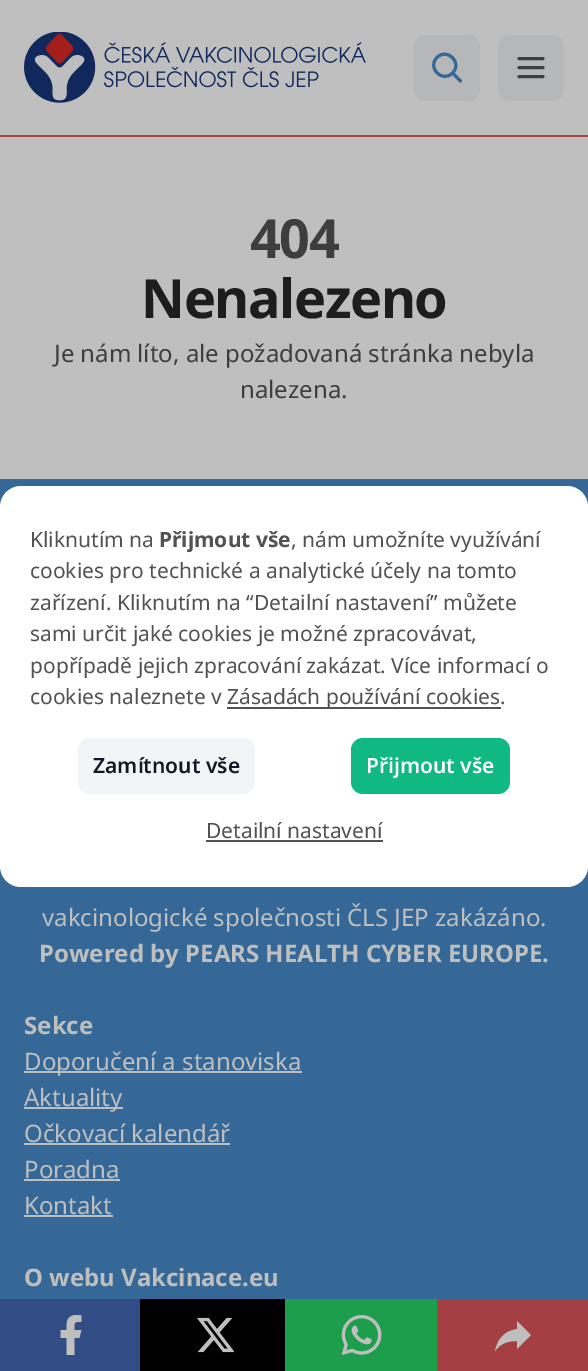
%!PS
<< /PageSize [588 1371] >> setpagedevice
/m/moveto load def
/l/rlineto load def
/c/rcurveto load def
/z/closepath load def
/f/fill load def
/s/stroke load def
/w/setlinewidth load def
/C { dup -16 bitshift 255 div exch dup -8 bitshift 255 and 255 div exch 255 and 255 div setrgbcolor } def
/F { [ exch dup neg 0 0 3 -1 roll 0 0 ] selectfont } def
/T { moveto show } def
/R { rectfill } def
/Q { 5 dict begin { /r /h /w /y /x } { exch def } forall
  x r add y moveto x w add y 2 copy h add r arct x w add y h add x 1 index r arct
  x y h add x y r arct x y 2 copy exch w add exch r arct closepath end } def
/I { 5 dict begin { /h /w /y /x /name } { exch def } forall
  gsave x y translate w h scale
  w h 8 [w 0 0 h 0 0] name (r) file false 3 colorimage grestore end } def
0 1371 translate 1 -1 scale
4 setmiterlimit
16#BFBFBF C
0 0 588 1371 R
16#A43F44 C
0 135 588 2 R
(1.rgb) 24 32 342 71 I
16#B6B7B9 C
414 35 66 66 12 Q f
16#356897 C
3 w
1 setlinecap
1 setlinejoin
460.5 81 m -8 -8 l 452.5 73 m 10.5 -10 -5.5 -26 -15.5 -15.5 c -10.5 10 5.5 26 15.5 15.5 c z s
16#B6B7B9 C
498 35 66 66 12 Q f
16#3E3E3E C
519 58.5 m 24 0 l 519 67.5 m 24 0 l 519 76.5 m 24 0 l s
/NotoSans-Bold 54 F
250 258 m -1.4 0 (404) ashow
16#1D1D1D C
141 318 m -1.4 0 (Nenalezeno) ashow
/NotoSans-Regular 24 F
16#3E3E3E C
(Je nám líto, ale požadovaná stránka nebyla) 54 362 T
(nalezena.) 240 398 T
16#356897 C
0 479 588 820 R
16#BFBFBF C
(vakcinologické společnosti ČLS JEP zakázáno.) 42 926 T
/NotoSans-Bold 24 F
(Powered by PEARS HEALTH CYBER EUROPE.) 39 962 T
(Sekce) 24 1034 T
24 1071 278 2 R
/NotoSans-Regular 24 F
(Doporučení a stanoviska) 24 1070 T
24 1107 99 2 R
(Aktuality) 24 1106 T
(Očkovací kalendář) 24 1142 T
24 1143 206 2 R
(Poradna) 24 1178 T
24 1179 96 2 R
(Kontakt) 24 1214 T
24 1215 89 2 R
/NotoSans-Bold 24 F
(O webu Vakcinace.eu) 24 1286 T
16#FFFFFF C
0 486 588 401 21 Q f
/NotoSans-Regular 21 F
16#525252 C
(Kliknutím na) 30 547 T
/NotoSans-Bold 21 F
(Přijmout vše) 159 547 T
/NotoSans-Regular 21 F
(, nám umožníte využívání) 291 547 T
(cookies pro technické a analytické účely na tomto) 30 578 T
(zařízení. Kliknutím na “Detailní nastavení” můžete) 30 610 T
(sami určit jaké cookies je možné zpracovávat,) 30 641 T
(popřípadě jejich zpracování zakázat. Více informací o) 30 673 T
(cookies naleznete v) 30 704 T
227 707 274 2 R
(Zásadách používání cookies.) 227 704 T
16#F3F4F6 C
78 738 177 56 12 Q f
/NotoSans-SemiBold 21 F
16#111827 C
(Zamítnout vše) 93 773 T
16#10B981 C
351 738 159 56 12 Q f
16#FFFFFF C
(Přijmout vše) 366 773 T
/NotoSans-Regular 21 F
16#525252 C
(Detailní nastavení) 206 838 T
206 840 177 2 R
16#324D86 C
0 1299 140 72 R
(2.rgb) 60 1315 22 40 I
16#000000 C
140 1299 145 72 R
(3.rgb) 197 1317 37 36 I
16#1C9E4D C
285 1299 152 72 R
(4.rgb) 341 1315 41 40 I
16#A43F44 C
437 1299 151 72 R
16#BFBFBF C
531 1335 m -14 -14 l 0 8 l -14 2 -20 12 -22 22 c 5 -7 12 -10 22 -10 c 0 8 l z f
showpage
